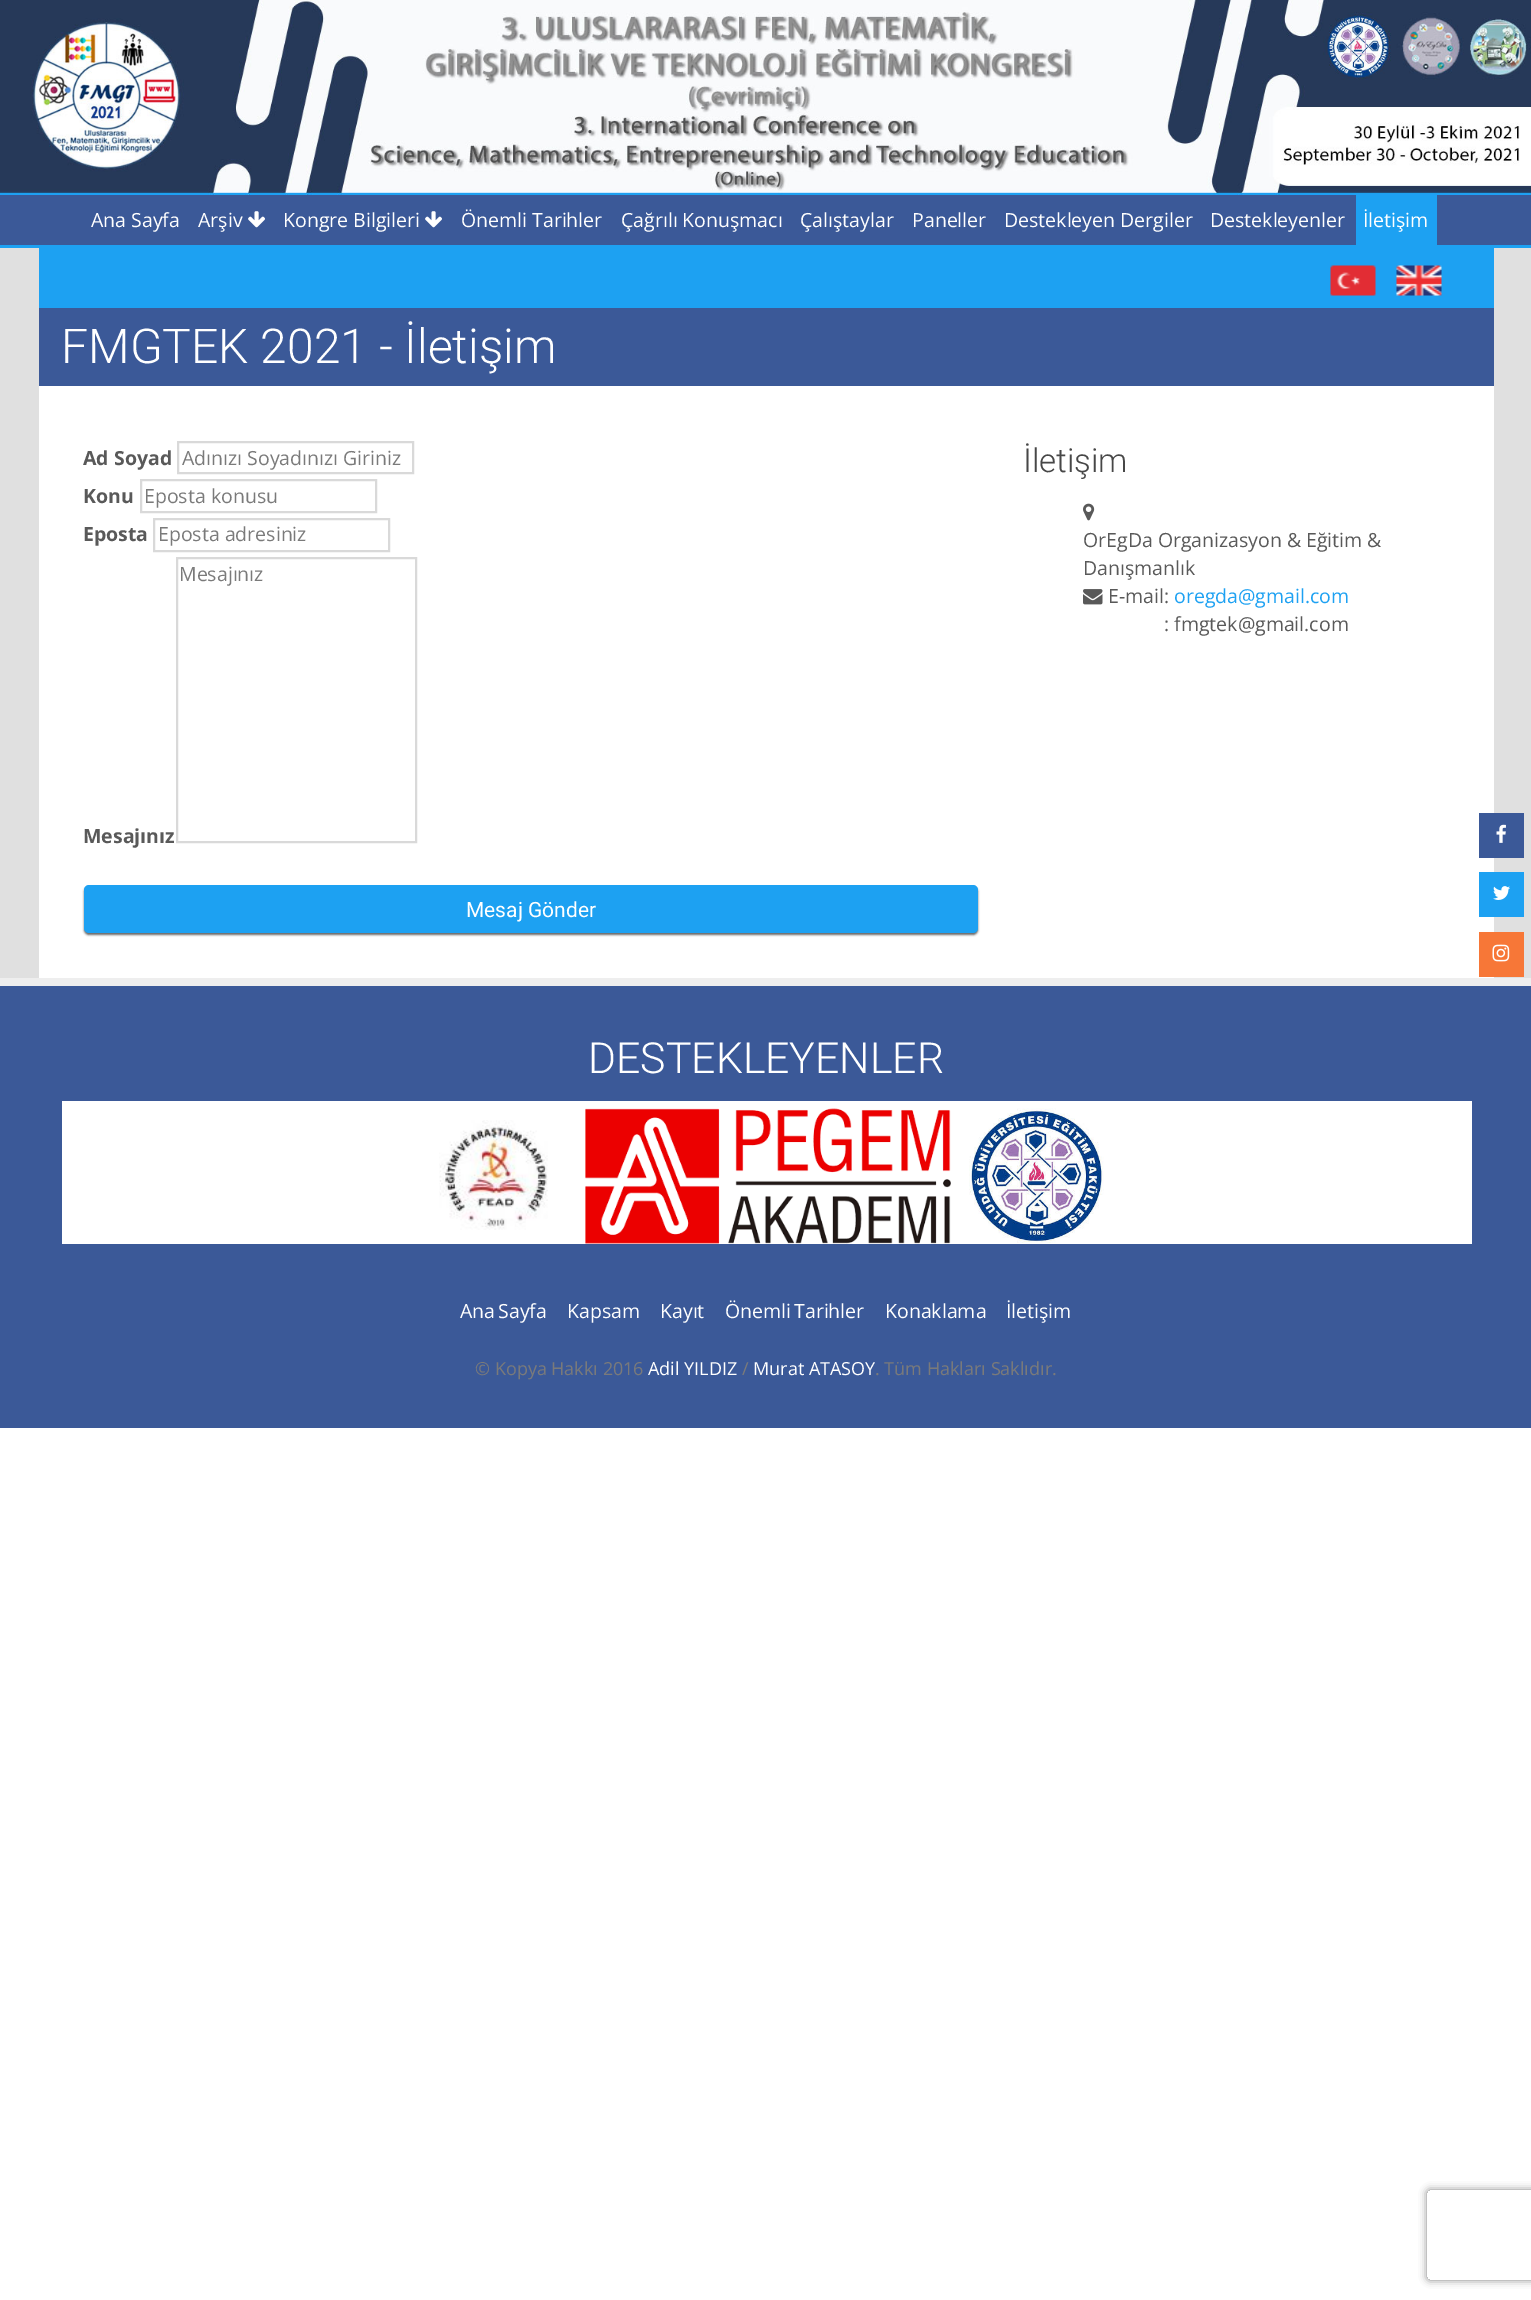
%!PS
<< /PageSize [1531 2300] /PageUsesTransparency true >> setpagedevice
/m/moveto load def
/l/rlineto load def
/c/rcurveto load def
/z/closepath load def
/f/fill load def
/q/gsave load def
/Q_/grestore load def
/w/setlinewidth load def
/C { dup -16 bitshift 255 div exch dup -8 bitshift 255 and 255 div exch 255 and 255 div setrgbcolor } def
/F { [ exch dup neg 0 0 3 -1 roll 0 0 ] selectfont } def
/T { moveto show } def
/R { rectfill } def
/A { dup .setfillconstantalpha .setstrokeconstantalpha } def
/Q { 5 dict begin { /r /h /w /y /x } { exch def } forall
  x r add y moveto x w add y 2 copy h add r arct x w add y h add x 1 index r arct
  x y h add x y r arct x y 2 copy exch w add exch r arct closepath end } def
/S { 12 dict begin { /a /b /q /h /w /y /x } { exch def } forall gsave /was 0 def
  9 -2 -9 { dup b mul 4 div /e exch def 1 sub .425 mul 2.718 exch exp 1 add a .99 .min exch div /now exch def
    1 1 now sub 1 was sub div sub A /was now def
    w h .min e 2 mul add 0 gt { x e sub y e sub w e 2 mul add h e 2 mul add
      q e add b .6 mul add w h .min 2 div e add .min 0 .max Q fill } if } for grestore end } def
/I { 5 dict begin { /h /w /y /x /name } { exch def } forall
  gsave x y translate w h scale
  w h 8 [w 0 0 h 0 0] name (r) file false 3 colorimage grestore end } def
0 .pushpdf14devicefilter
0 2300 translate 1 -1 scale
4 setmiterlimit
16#FFFFFF C
0 0 1531 2300 R
16#E0E0E0 C
0 248 1531 730 R
16#3B5998 C
0 195 1531 50 R
16#1DA1F2 C
0 245 1531 3 R
(1.rgb) 0 0 1531 195 I
/OpenSans-Regular 19.5 F
16#FFFFFF C
(Ana Sayfa) 91 227 T
(Arşiv) 198 227 T
(2.rgb) 248 211 17 17 I
(Kongre Bilgileri) 283 227 T
(2.rgb) 425 211 17 17 I
(Önemli Tarihler) 461 227 T
(Çağrılı Konuşmacı) 621 227 T
(Çalıştaylar) 800 227 T
(Paneller) 912 227 T
(Destekleyen Dergiler) 1004 227 T
(Destekleyenler) 1210 227 T
16#1DA1F2 C
1356 195 81 50 R
16#FFFFFF C
(İletişim) 1363 227 T
16#1DA1F2 C
39 248 1455 60 R
(3.rgb) 1330 265 46 31 I
(4.rgb) 1396 265 46 31 I
16#3B5998 C
39 308 1455 78 R
/Roboto-Light 48 F
16#FFFFFF C
(FMGTEK 2021 - İletişim) 61 363 T
39 386 1455 592 R
/OpenSans-Bold 19.5 F
16#595959 C
(Ad Soyad) 83 465 T
16#D9D9D9 C
2 w
178 442 235 31 rectstroke
/OpenSans-Regular 19.5 F
16#7A7A7A C
(Adınızı Soyadınızı Giriniz) 182 465 T
/OpenSans-Bold 19.5 F
16#595959 C
(Konu) 83 503 T
16#D9D9D9 C
141 480 235 32 rectstroke
/OpenSans-Regular 19.5 F
16#7A7A7A C
(Eposta konusu) 144 503 T
/OpenSans-Bold 19.5 F
16#595959 C
(Eposta) 83 541 T
16#D9D9D9 C
154 519 235 32 rectstroke
/OpenSans-Regular 19.5 F
16#7A7A7A C
(Eposta adresiniz) 158 541 T
16#D9D9D9 C
177 558 239 284 rectstroke
16#7A7A7A C
(Mesajınız) 179 581 T
/OpenSans-Bold 19.5 F
16#595959 C
(Mesajınız) 83 843 T
16#000000 C
84 887 894 48 5 1 .6 S
16#1DA1F2 C
84 885 894 48 5 Q f
/Roboto-Regular 21 F
16#FFFFFF C
(Mesaj Gönder) 466 917 T
q
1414 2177 m 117 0 l 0 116 l -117 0 l z 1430 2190 m 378 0 l 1.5 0 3 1.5 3 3 c 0 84 l 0 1.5 -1.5 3 -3 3 c -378 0 l -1.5 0 -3 -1.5 -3 -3 c 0 -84 l 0 -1.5 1.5 -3 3 -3 c z eoclip newpath
16#808080 C
1427 2190 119 90 3 4 1 S
Q_
/Roboto-Light 33 F
16#474747 C
(İletişim) 1023 472 T
(5.rgb) 1083 503 12 18 I
/OpenSans-Regular 19.5 F
16#595959 C
(OrEgDa Organizasyon & Eğitim &) 1083 547 T
(Danışmanlık) 1083 575 T
(6.rgb) 1083 589 20 16 I
(E-mail:) 1108 603 T
16#1DA1F2 C
(oregda@gmail.com) 1174 603 T
16#595959 C
(: fmgtek@gmail.com) 1164 631 T
16#3B5998 C
0 986 1531 442 R
16#EEEEEE C
0 978 1531 8 R
/Roboto-Light 42.75 F
16#FFFFFF C
(DESTEKLEYENLER) 588 1073 T
62 1101 1410 143 R
(7.rgb) 439 1120 109 110 I
(8.rgb) 585 1108 366 136 I
(9.rgb) 969 1108 135 135 I
/OpenSans-Regular 19.5 F
460 1318 m -2 0 32 (Ana Sayfa) widthshow
(Kapsam) 567 1318 T
(Kayıt) 660 1318 T
725 1318 m -2 0 32 (Önemli Tarihler) widthshow
(Konaklama) 885 1318 T
(İletişim) 1006 1318 T
/OpenSans-Regular 18 F
16#7A7A7A C
(© Kopya Hakkı 2016) 475 1375 T
16#FFFFFF C
(Adil YILDIZ) 648 1375 T
16#7A7A7A C
(/) 742 1375 T
16#FFFFFF C
(Murat ATASOY) 753 1375 T
16#7A7A7A C
(. Tüm Hakları Saklıdır.) 875 1375 T
16#3B5998 C
1479 813 45 45 R
(10.rgb) 1496 824 10 19 I
16#1DA1F2 C
1479 872 45 45 R
(11.rgb) 1493 886 17 14 I
16#F77737 C
1479 932 45 45 R
(12.rgb) 1492 944 18 18 I
.poppdf14devicefilter showpage
